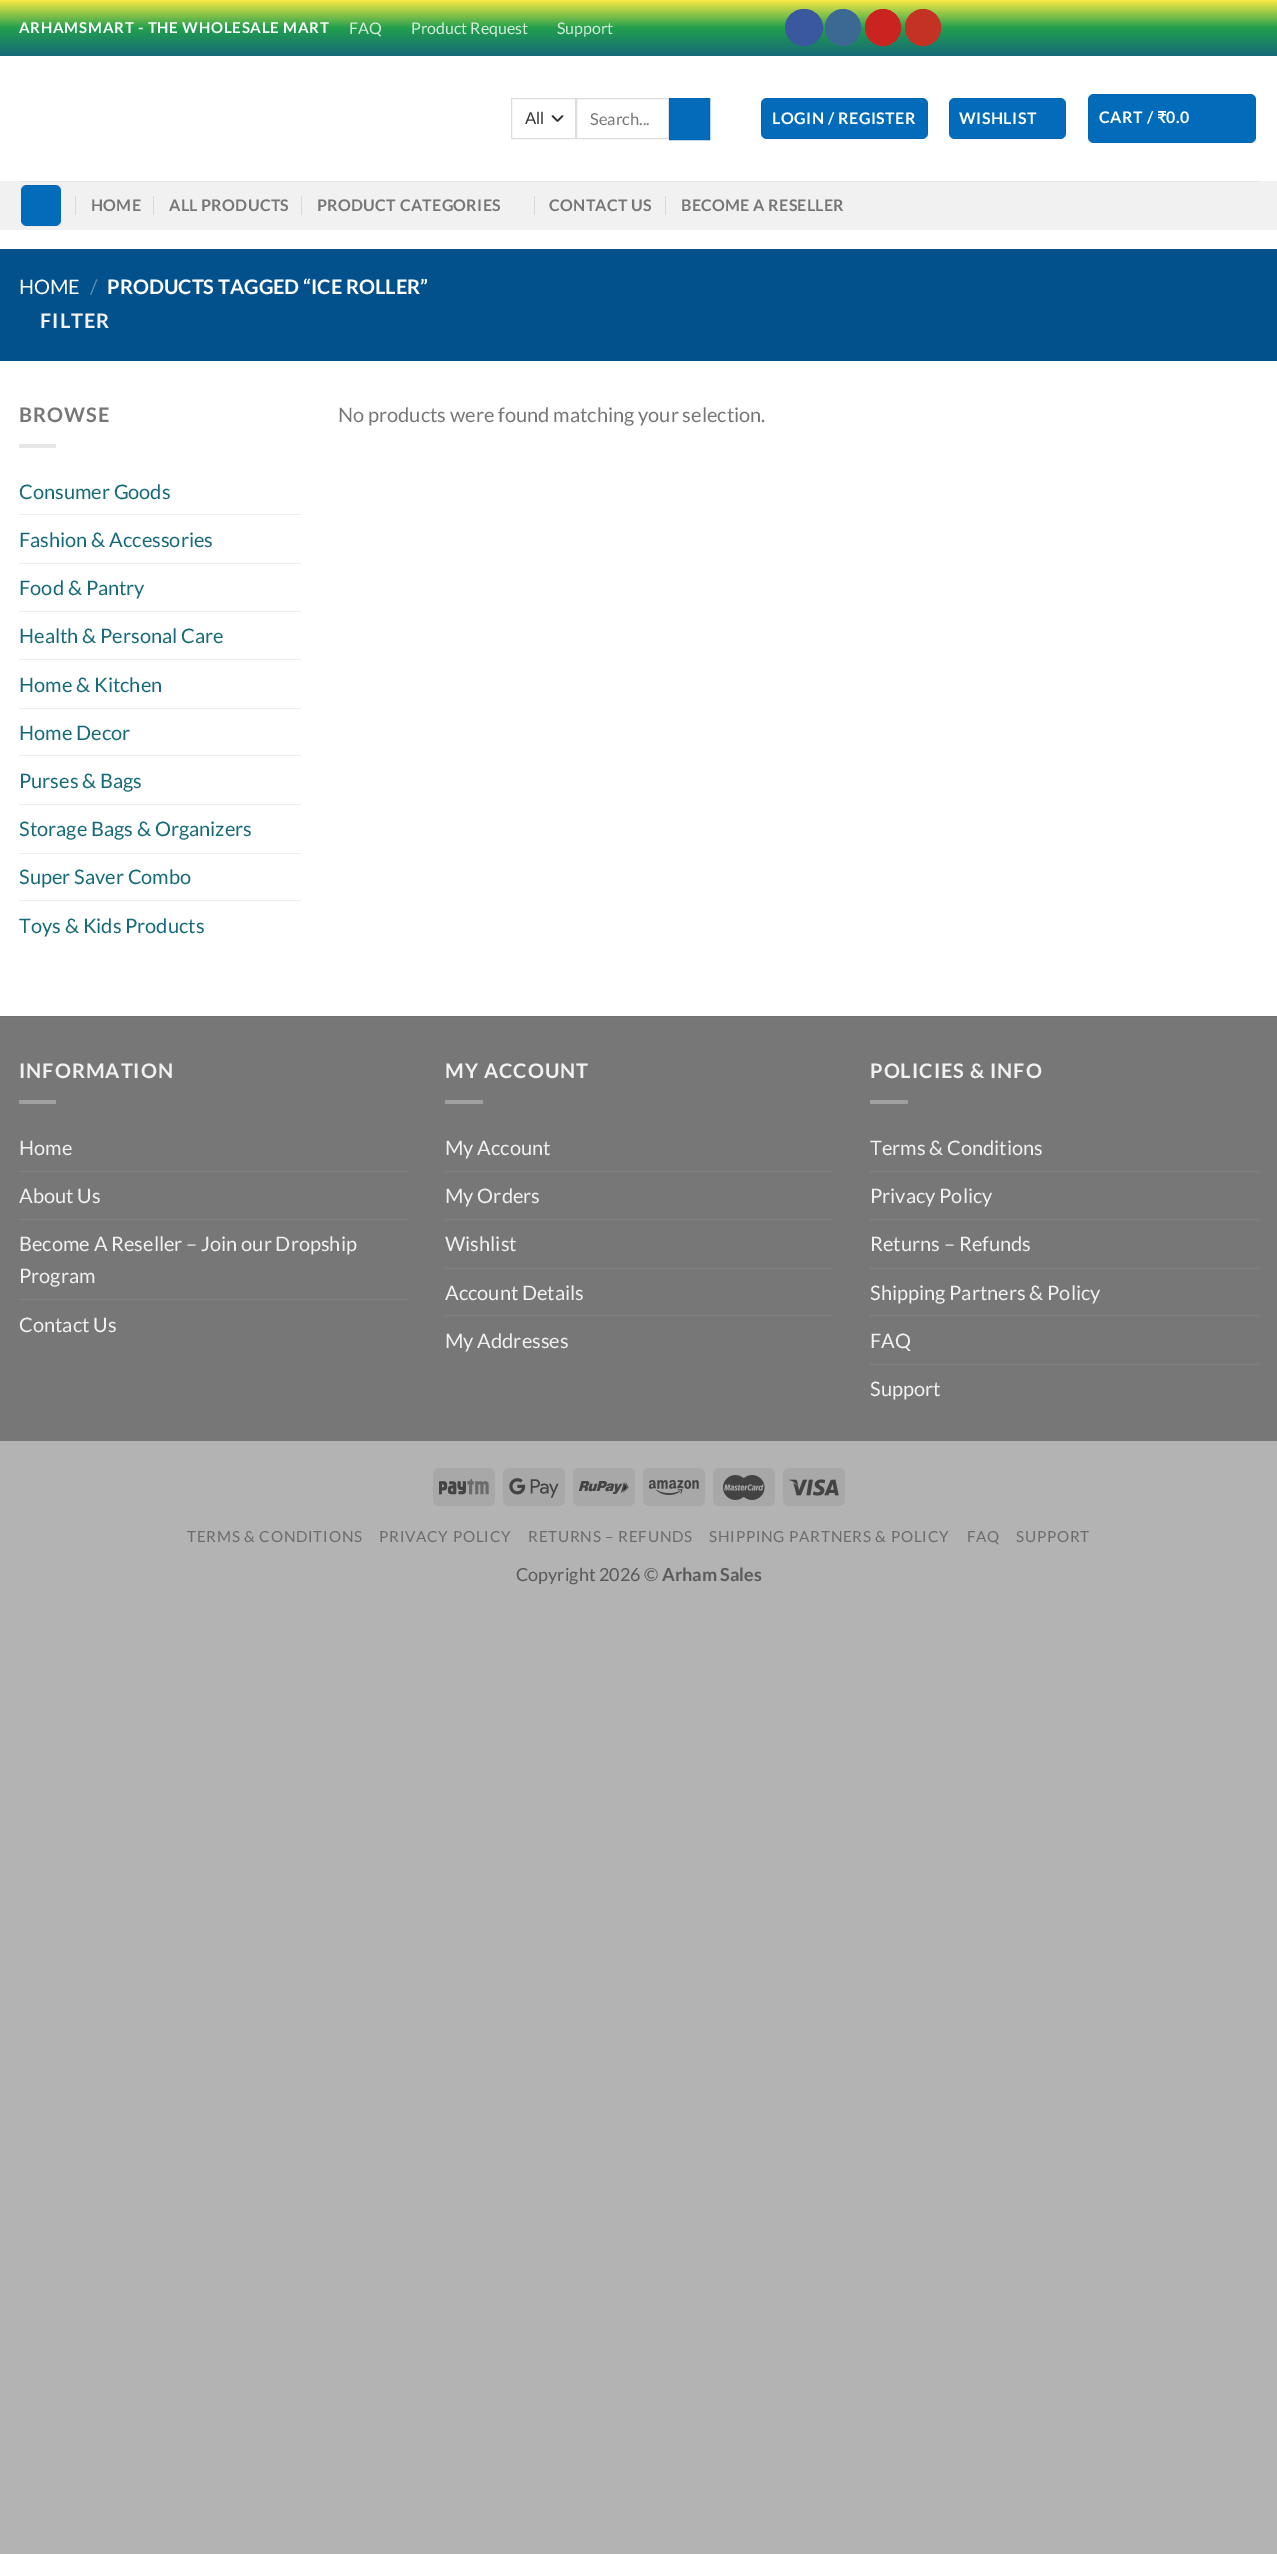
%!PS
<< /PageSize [1277 2554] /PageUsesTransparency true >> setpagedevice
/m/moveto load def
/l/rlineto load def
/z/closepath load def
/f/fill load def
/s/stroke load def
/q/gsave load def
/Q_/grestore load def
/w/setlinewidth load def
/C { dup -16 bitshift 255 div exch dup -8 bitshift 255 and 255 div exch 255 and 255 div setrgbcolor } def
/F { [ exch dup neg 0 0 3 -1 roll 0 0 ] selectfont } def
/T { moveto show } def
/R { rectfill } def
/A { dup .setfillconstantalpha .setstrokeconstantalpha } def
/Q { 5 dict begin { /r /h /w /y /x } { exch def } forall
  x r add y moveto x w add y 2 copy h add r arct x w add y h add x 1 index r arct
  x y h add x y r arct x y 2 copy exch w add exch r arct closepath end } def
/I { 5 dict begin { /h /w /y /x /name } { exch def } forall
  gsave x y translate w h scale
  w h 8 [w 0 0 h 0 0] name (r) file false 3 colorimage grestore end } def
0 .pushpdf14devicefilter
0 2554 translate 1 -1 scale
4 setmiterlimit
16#B3B3B3 C
0 0 1277 2554 R
16#FFFFFF C
0 56 1277 960 R
q 0 0 m 1277 0 l 0 56 l -1277 0 l z clip newpath
<< /ShadingType 2 /ColorSpace /DeviceRGB /Coords [639 0 639 56] /Extend [true true] /Function << /FunctionType 3 /Domain [0 1] /Functions [<< /FunctionType 2 /Domain [0 1] /C0 [.98 .918 .271] /C1 [.129 .624 .302] /N 1 >> << /FunctionType 2 /Domain [0 1] /C0 [.129 .624 .302] /C1 [.086 .416 .475] /N 1 >>] /Bounds [.5] /Encode [0 1 0 1] >> >> shfill Q_
/Lato-Bold 15 F
19 33 m .75 0 (ARHAMSMART - THE WHOLESALE MART) ashow
/Lato-Regular 16 F
16#D5ECDC C
(FAQ) 349 34 T
(Product Request) 411 34 T
(Support) 557 34 T
16#3A589D C
785.5 9.5 37 36 18 Q q f Q_
s
16#3B6994 C
825.5 9.5 35 36 17.5 Q q f Q_
s
16#CB2320 C
865.5 9.5 35 36 17.5 Q q f Q_
s
16#C33223 C
905.5 9.5 35 36 17.5 Q q f Q_
s
16#333333 C
1.7 w
1 setlinecap
1 setlinejoin
552.5 116 m 5 5 l 5 -5 l s
16#DDDDDD C
1 w
0 setlinecap
0 setlinejoin
511.5 98.5 64 40 rectstroke
/Lato-Regular 16.5 F
16#333333 C
(All) 525 124 T
16#DDDDDD C
576.5 98.5 92 40 rectstroke
16#777777 C
(Search...) 590 125 T
16#026CBB C
669.5 98.5 m 40 0 l 0 41 l -40 0 l z q f Q_
16#0267B2 C
s
16#026CBB C
761 98 167 41 6 Q f
0.05 A
16#000000 C
761.5 98.5 166 40 rectstroke
/Lato-Bold 16 F
1 A
16#FFFFFF C
772 124 m .5 0 (LOGIN / REGISTER) ashow
16#026CBB C
949 98 117 41 6 Q f
0.05 A
16#000000 C
949.5 98.5 116 40 rectstroke
1 A
16#FFFFFF C
959 124 m .5 0 (WISHLIST) ashow
16#026CBB C
1088 94 168 49 6 Q f
0.05 A
16#000000 C
1088.5 94.5 167 48 rectstroke
1 A
16#FFFFFF C
1099 123 m .5 0 (CART /) ashow
/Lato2-Bold 16 F
1157 123 m .5 0 (₹) ashow
/Lato-Bold 16 F
1166 123 m .5 0 (0.0) ashow
16#F1F1F1 C
0 181 1277 49 R
16#E5E5E5 C
19 181 1240 1 R
16#026CBB C
21 185 40 41 6 Q f
0.05 A
16#000000 C
21.5 185.5 39 40 rectstroke
1 A
16#D9D9D9 C
75 196 1 19 R
16#777777 C
91 211 m .3 0 (HOME) ashow
16#D9D9D9 C
153 196 1 19 R
16#777777 C
169 211 m .3 0 (ALL PRODUCTS) ashow
16#D9D9D9 C
301 196 1 19 R
16#777777 C
317 211 m .3 0 (PRODUCT CATEGORIES) ashow
16#D9D9D9 C
534 196 1 19 R
16#777777 C
549 211 m .3 0 (CONTACT US) ashow
16#D9D9D9 C
665 196 1 19 R
16#777777 C
681 211 m .3 0 (BECOME A RESELLER) ashow
16#02518D C
0 249 1277 112 R
/Lato-Regular 20 F
16#FFFFFF C
(HOME) 19 294 T
16#5B8EB5 C
(/) 90 294 T
/Lato-Bold 20 F
16#FFFFFF C
(PRODUCTS TAGGED “ICE ROLLER”) 107 294 T
16#F1F1F1 C
40 328 m 1 0 (FILTER) ashow
16#777777 C
19 422 m 1 0 (BROWSE) ashow
16#E6E6E6 C
19 444 37 4 R
/Lato-Regular 20 F
16#166A79 C
(Consumer Goods) 19 499 T
16#ECECEC C
19 514 282 1 R
16#166A79 C
(Fashion & Accessories) 19 547 T
16#ECECEC C
19 563 282 1 R
16#166A79 C
(Food & Pantry) 19 595 T
16#ECECEC C
19 611 282 1 R
16#166A79 C
(Health & Personal Care) 19 643 T
16#ECECEC C
19 659 282 1 R
16#166A79 C
(Home & Kitchen) 19 692 T
16#ECECEC C
19 708 282 1 R
16#166A79 C
(Home Decor) 19 740 T
16#ECECEC C
19 755 282 1 R
16#166A79 C
(Purses & Bags) 19 788 T
16#ECECEC C
19 804 282 1 R
16#166A79 C
(Storage Bags & Organizers) 19 836 T
16#ECECEC C
19 853 282 1 R
16#166A79 C
(Super Saver Combo) 19 884 T
16#ECECEC C
19 900 282 1 R
16#166A79 C
(Toys & Kids Products) 19 933 T
16#777777 C
(No products were found matching your selection.) 338 422 T
0 1017 1277 424 R
16#717171 C
0 1016 1277 1 R
/Lato-Bold 20 F
16#F1F1F1 C
19 1078 m 1 0 (INFORMATION) ashow
16#A0A0A0 C
19 1100 37 4 R
/Lato-Regular 20 F
16#F1F1F1 C
(Home) 19 1155 T
16#828282 C
19 1171 389 1 R
16#F1F1F1 C
(About Us) 19 1203 T
16#828282 C
19 1219 389 1 R
16#F1F1F1 C
(Become A Reseller – Join our Dropship) 19 1251 T
(Program) 19 1283 T
16#828282 C
19 1299 389 1 R
16#F1F1F1 C
(Contact Us) 19 1332 T
/Lato-Bold 20 F
445 1078 m 1 0 (MY ACCOUNT) ashow
16#A0A0A0 C
445 1100 38 4 R
/Lato-Regular 20 F
16#F1F1F1 C
(My Account) 445 1155 T
16#828282 C
445 1171 388 1 R
16#F1F1F1 C
(My Orders) 445 1203 T
16#828282 C
445 1219 388 1 R
16#F1F1F1 C
(Wishlist) 445 1251 T
16#828282 C
445 1268 388 1 R
16#F1F1F1 C
(Account Details) 445 1300 T
16#828282 C
445 1315 388 1 R
16#F1F1F1 C
(My Addresses) 445 1348 T
/Lato-Bold 20 F
870 1078 m 1 0 (POLICIES & INFO) ashow
16#A0A0A0 C
870 1100 38 4 R
/Lato-Regular 20 F
16#F1F1F1 C
(Terms & Conditions) 870 1155 T
16#828282 C
870 1171 389 1 R
16#F1F1F1 C
(Privacy Policy) 870 1203 T
16#828282 C
870 1219 389 1 R
16#F1F1F1 C
(Returns – Refunds) 870 1251 T
16#828282 C
870 1268 389 1 R
16#F1F1F1 C
(Shipping Partners & Policy) 870 1300 T
16#828282 C
870 1315 389 1 R
16#F1F1F1 C
(FAQ) 870 1348 T
16#828282 C
870 1364 389 1 R
16#F1F1F1 C
(Support) 870 1396 T
16#A8A8A8 C
433 1468 62 38 6 Q f
(1.rgb) 439 1478 50 17 I
503 1468 62 38 6 Q f
(2.rgb) 509 1478 50 20 I
573 1468 62 38 6 Q f
(3.rgb) 579 1481 50 13 I
643 1468 62 38 6 Q f
(4.rgb) 649 1480 50 15 I
713 1468 62 38 6 Q f
(5.rgb) 722 1475 43 25 I
783 1468 62 38 6 Q f
(6.rgb) 789 1479 50 17 I
/Lato-Regular 15.25 F
16#6C6C6C C
187 1542 m .75 0 (TERMS & CONDITIONS) ashow
379 1542 m .75 0 (PRIVACY POLICY) ashow
528 1542 m .75 0 (RETURNS – REFUNDS) ashow
709 1542 m .75 0 (SHIPPING PARTNERS & POLICY) ashow
967 1542 m .75 0 (FAQ) ashow
1016 1542 m .75 0 (SUPPORT) ashow
/Lato-Regular 18 F
16#5A5A5A C
(Copyright 2026 ©) 516 1581 T
/Lato-Bold 18 F
(Arham Sales) 662 1581 T
.poppdf14devicefilter showpage
